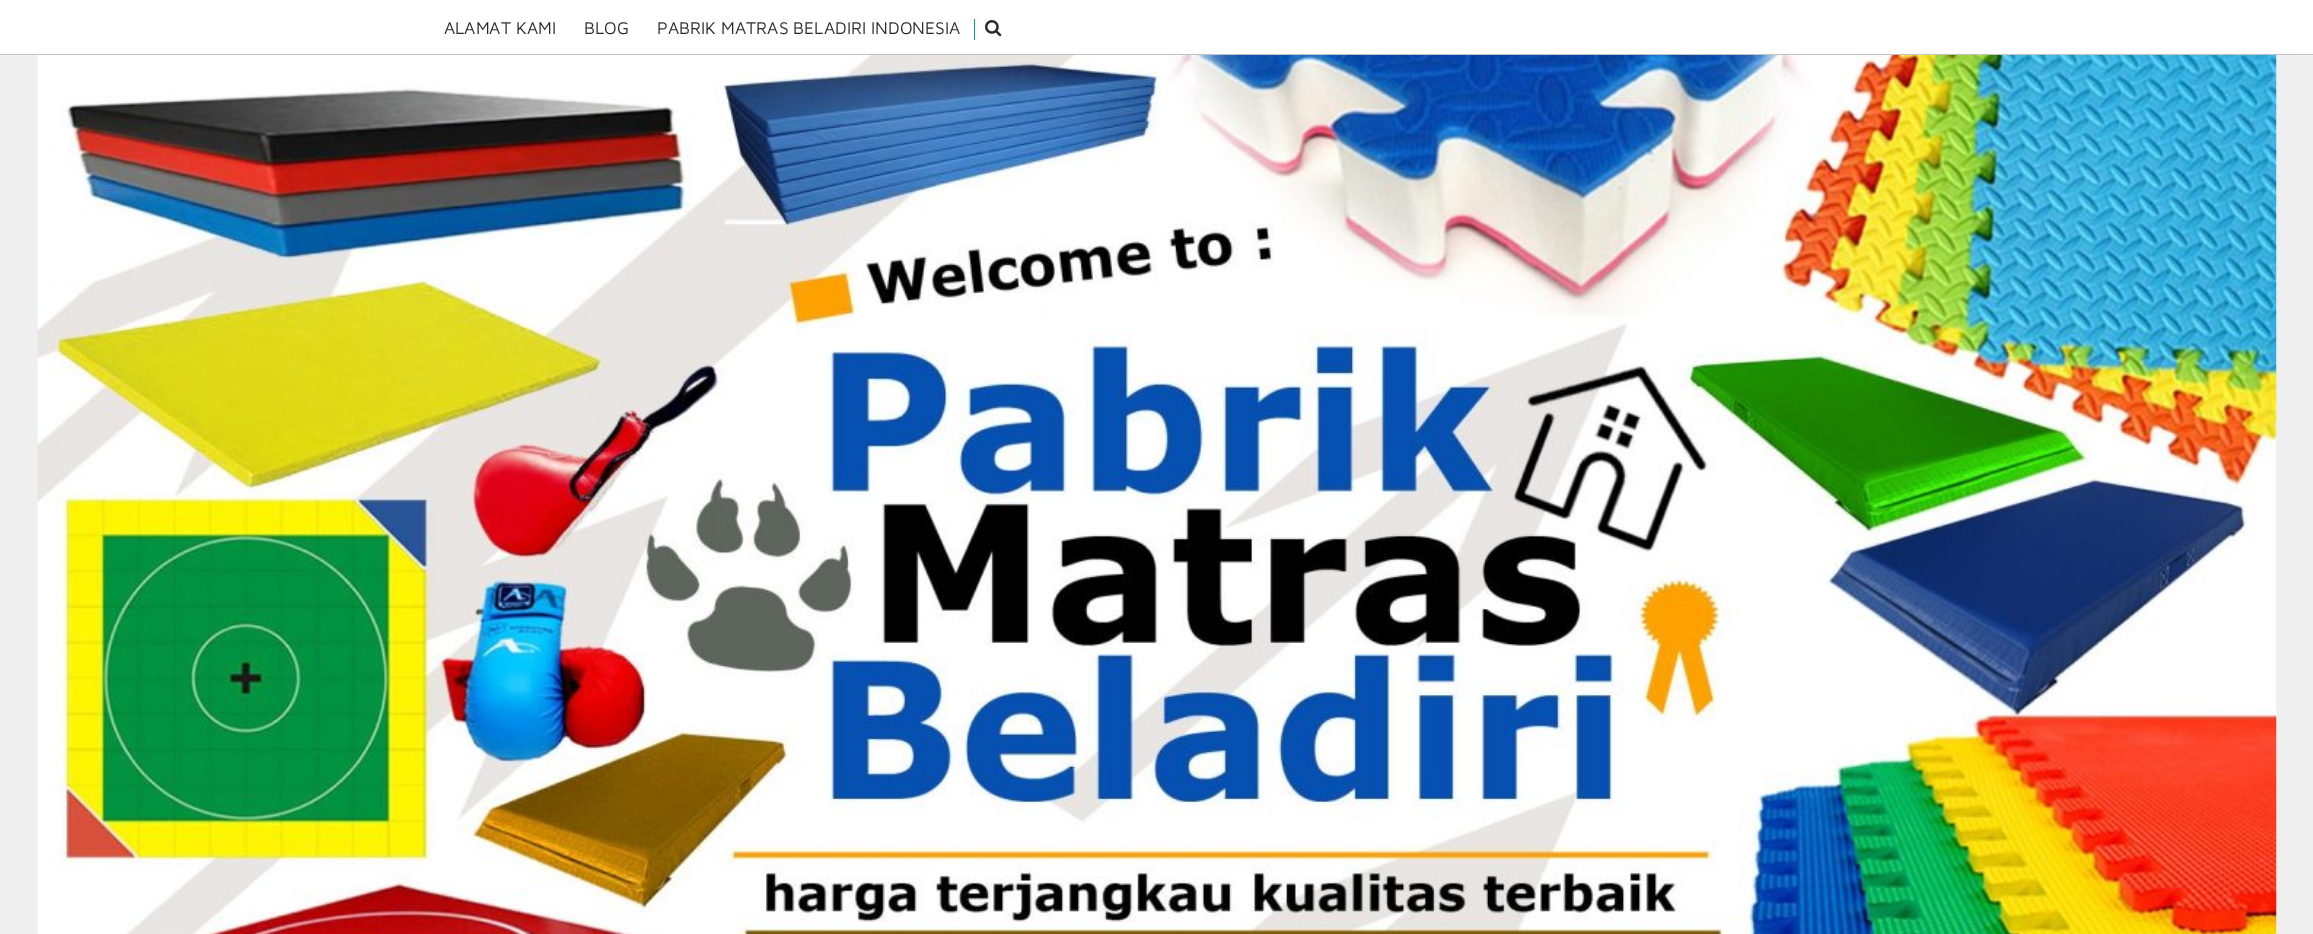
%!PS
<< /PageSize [2313 934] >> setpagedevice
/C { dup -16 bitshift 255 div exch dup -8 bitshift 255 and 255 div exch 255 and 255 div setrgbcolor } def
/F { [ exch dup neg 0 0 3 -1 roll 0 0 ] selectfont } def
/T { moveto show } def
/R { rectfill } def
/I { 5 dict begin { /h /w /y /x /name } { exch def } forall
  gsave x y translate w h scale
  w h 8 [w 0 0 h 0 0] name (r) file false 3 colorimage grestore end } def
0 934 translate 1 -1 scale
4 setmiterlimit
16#EFEFEF C
0 0 2313 934 R
16#FFFFFF C
0 0 2313 54 R
16#C3C3C3 C
0 54 2313 1 R
/MavenPro-Regular 17.5 F
16#2A2A2A C
(ALAMAT KAMI) 444 34 T
(BLOG) 584 34 T
(PABRIK MATRAS BELADIRI INDONESIA) 657 34 T
16#00A28D C
974 19 1 21 R
(1.rgb) 985 20 17 17 I
(2.rgb) 37 55 2240 879 I
showpage
